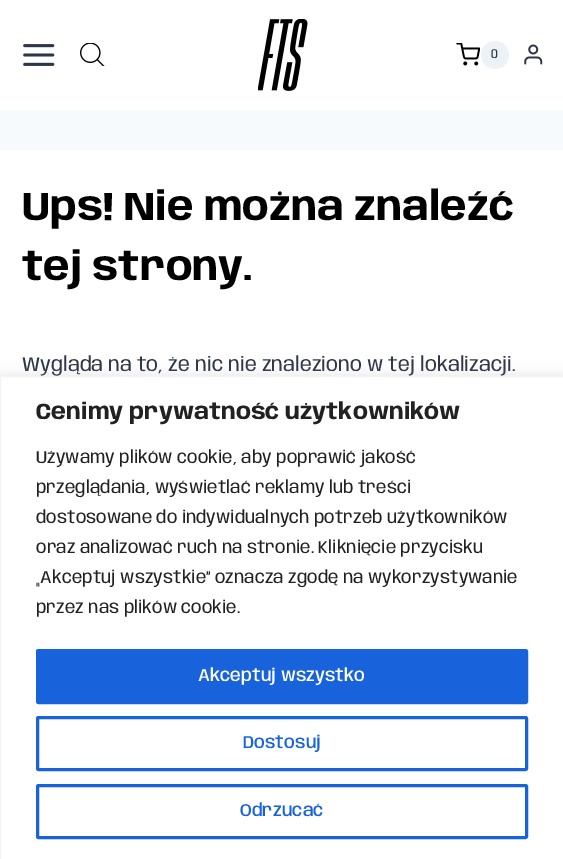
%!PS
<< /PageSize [563 859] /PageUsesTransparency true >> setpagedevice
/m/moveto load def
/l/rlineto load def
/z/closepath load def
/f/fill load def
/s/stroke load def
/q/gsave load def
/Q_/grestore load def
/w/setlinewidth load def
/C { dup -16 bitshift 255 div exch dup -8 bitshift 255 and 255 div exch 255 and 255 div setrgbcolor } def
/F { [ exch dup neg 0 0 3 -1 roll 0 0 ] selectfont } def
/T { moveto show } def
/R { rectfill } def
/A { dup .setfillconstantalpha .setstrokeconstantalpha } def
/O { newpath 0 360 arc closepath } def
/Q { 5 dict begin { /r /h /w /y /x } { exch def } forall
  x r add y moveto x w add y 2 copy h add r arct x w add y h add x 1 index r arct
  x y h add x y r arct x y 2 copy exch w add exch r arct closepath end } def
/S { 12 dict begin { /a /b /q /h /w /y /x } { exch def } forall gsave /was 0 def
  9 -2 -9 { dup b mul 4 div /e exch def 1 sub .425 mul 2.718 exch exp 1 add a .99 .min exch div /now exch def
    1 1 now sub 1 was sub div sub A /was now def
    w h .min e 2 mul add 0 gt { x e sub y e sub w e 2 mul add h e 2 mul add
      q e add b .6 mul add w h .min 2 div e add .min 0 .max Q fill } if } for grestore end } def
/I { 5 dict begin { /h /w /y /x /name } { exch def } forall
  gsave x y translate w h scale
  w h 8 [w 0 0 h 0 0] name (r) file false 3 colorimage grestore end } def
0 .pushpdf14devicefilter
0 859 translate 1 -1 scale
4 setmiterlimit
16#F7FAFC C
0 0 563 859 R
16#FFFFFF C
0 0 563 110 R
(1.rgb) 23 44 32 22 I
(2.rgb) 80 43 25 23 I
(3.rgb) 258 19 50 72 I
(4.rgb) 456 43 24 23 I
16#EDF2F7 C
495 55 14 O f
/Anybody-Regular 13 F
16#2D3748 C
(0) 491 58 T
(5.rgb) 524 44 19 21 I
16#FFFFFF C
0 150 563 226 R
/Anybody-Bold 40 F
16#000000 C
(Ups! Nie można znaleźć) 22 220 T
(tej strony.) 22 280 T
/Anybody-Regular 20 F
16#2D3748 C
(Wygląda na to, że nic nie znaleziono w tej lokalizacji.) 22 371 T
16#ACABAB C
0 375 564 484 0 6 .3 S
16#FFFFFF C
.5 376.5 m 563 0 l 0 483 l -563 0 l z q f Q_
16#F4F4F4 C
s
/Anybody-Bold 22.5 F
16#212121 C
(Cenimy prywatność użytkowników) 36 419 T
/Anybody-Regular 17.5 F
(Używamy plików cookie, aby poprawić jakość) 36 463 T
(przeglądania, wyświetlać reklamy lub treści) 36 493 T
(dostosowane do indywidualnych potrzeb użytkowników) 36 523 T
(oraz analizować ruch na stronie. Kliknięcie przycisku) 36 553 T
(„Akceptuj wszystkie” oznacza zgodę na wykorzystywanie) 36 583 T
(przez nas plików cookie.) 36 613 T
16#1863DC C
37.5 650.5 489 52 1 Q q f Q_
3 w
s
/Anybody-Medium 17.5 F
16#FFFFFF C
(Akceptuj wszystko) 198 681 T
16#1863DC C
37.5 717.5 489 52 1 Q s
(Dostosuj) 243 748 T
37.5 785.5 489 52 1 Q s
(Odrzucać) 240 816 T
.poppdf14devicefilter showpage
